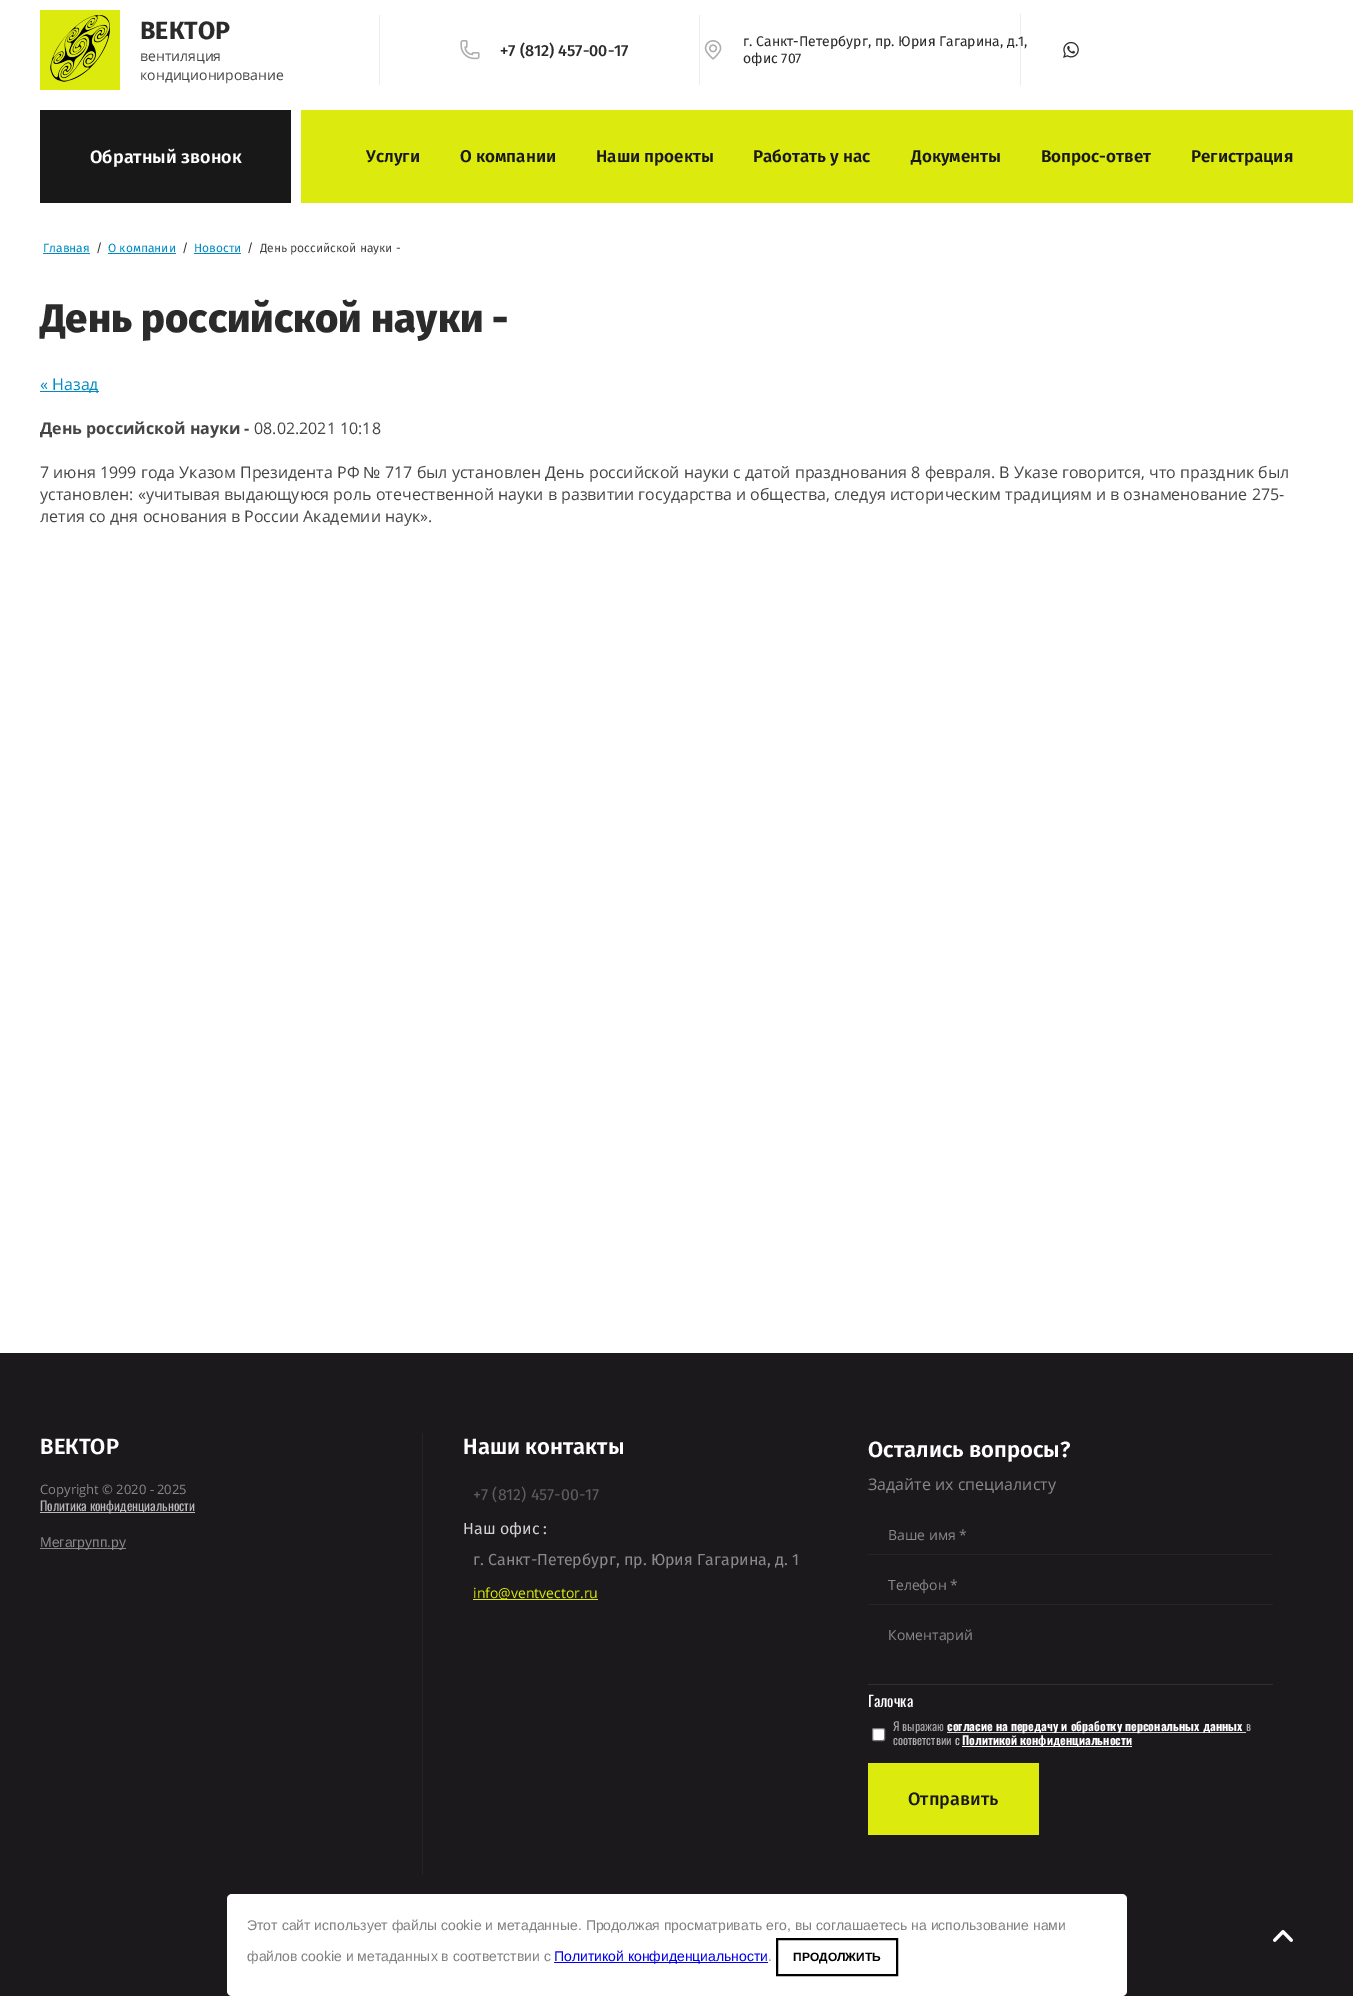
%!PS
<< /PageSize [1353 1996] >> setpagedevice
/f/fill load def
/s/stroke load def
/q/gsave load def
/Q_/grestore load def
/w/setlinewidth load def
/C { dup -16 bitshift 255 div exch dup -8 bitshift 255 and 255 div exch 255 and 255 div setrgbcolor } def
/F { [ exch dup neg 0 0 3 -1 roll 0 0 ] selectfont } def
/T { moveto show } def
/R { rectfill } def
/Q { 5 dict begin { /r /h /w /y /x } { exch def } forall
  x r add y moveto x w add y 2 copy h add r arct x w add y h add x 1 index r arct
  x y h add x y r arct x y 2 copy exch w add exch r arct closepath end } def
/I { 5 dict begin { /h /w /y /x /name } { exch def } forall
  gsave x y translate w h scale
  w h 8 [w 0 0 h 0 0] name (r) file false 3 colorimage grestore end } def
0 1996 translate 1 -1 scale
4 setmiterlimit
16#FFFFFF C
0 0 1353 1996 R
(1.rgb) 40 10 80 80 I
/FiraSans-Bold 25 F
16#2B2B2B C
(ВЕКТОР) 140 39 T
/OpenSans-Regular 14 F
16#454545 C
(вентиляция) 140 61 T
(кондиционирование) 140 80 T
16#ECECEC C
699 15 1 70 R
379 15 1 70 R
(2.rgb) 460 40 20 20 I
/FiraSans-Medium 16 F
16#2B2B2B C
(+7 \(812\) 457-00-17) 500 56 T
16#ECECEC C
1020 14 1 72 R
(3.rgb) 704 40 18 20 I
/FiraSans-Regular 14 F
16#2B2B2B C
(г. Санкт-Петербург, пр. Юрия Гагарина, д.1,) 743 46 T
(офис 707) 743 63 T
(4.rgb) 1063 41 16 17 I
16#181818 C
40 110 251 93 R
/FiraSans-SemiBold 18 F
16#FFFFFF C
(Обратный звонок) 90 163 T
16#DCEB0D C
301 110 1052 93 R
/FiraSans-SemiBold 17 F
16#181818 C
(Услуги) 366 162 T
(О компании) 460 162 T
(Наши проекты) 596 162 T
(Работать у нас) 753 162 T
(Документы) 911 162 T
(Вопрос-ответ) 1041 162 T
(Регистрация) 1191 162 T
/FiraSans-Regular 12 F
16#008BC2 C
(Главная) 43 252 T
43 253 47 1 R
16#2B2B2B C
(/) 96 252 T
16#008BC2 C
(О компании) 108 252 T
108 253 68 1 R
16#2B2B2B C
(/) 182 252 T
16#008BC2 C
(Новости) 194 252 T
194 253 47 1 R
16#2B2B2B C
(/) 247 252 T
16#454545 C
(День российской науки -) 260 252 T
/FiraSans-ExtraBold 40 F
16#2B2B2B C
(День российской науки -) 40 332 T
16#008BC2 C
40 391 59 1 R
/OpenSans-Regular 16 F
(« Назад) 40 390 T
/OpenSans-Bold 16 F
16#454545 C
(День российской науки -) 40 434 T
/OpenSans-Regular 16 F
(08.02.2021 10:18) 254 434 T
(7 июня 1999 года Указом Президента РФ) 40 478 T
/LiberationSans-Regular 16 F
(№) 363 478 T
/OpenSans-Regular 16 F
(717 был установлен День российской науки с датой празднования 8 февраля. В Указе говорится, что праздник был) 385 478 T
(установлен: «учитывая выдающуюся роль отечественной науки в развитии государства и общества, следуя историческим традициям и в ознаменование 275-) 40 500 T
(летия со дня основания в России Академии наук».) 40 522 T
16#1B191C C
0 1353 1353 643 R
/FiraSans-SemiBold 22 F
16#FFFFFF C
(ВЕКТОР) 40 1454 T
/OpenSans-Regular 13 F
16#898989 C
(Copyright © 2020 - 2025) 40 1494 T
16#B9B9B9 C
40 1512 155 1 R
/Oswald-Regular 13 F
(Политика конфиденциальности) 40 1511 T
16#89888A C
40 1548 86 1 R
/LiberationSans-Regular 14 F
16#898989 C
(Мегагрупп.ру) 40 1547 T
16#262427 C
422 1433 1 442 R
/FiraSans-SemiBold 22 F
16#FFFFFF C
(Наши контакты) 463 1454 T
/FiraSans-Regular 16 F
16#5F5E60 C
(+7 \(812\) 457-00-17) 473 1500 T
16#D1D1D2 C
(Наш офис :) 463 1534 T
16#898989 C
(г. Санкт-Петербург, пр. Юрия Гагарина, д. 1) 473 1565 T
16#DCEB0D C
473 1599 125 1 R
/OpenSans-Regular 14 F
(info@ventvector.ru) 473 1598 T
/FiraSans-SemiBold 22 F
16#FFFFFF C
(Остались вопросы?) 868 1457 T
/OpenSans-Regular 16 F
16#898989 C
(Задайте их специалисту) 868 1490 T
16#262427 C
868 1554 405 1 R
/OpenSans-Regular 14 F
16#898989 C
(Ваше имя *) 888 1540 T
16#262427 C
868 1604 405 1 R
16#898989 C
(Телефон *) 888 1590 T
16#312F32 C
868 1684 405 1 R
16#898989 C
(Коментарий) 888 1640 T
/Oswald-Regular 15 F
16#FFFFFF C
(Галочка) 868 1707 T
872.5 1728.5 12 12 1.5 Q q f Q_
16#767676 C
s
/Oswald-Regular 12 F
16#A9A5A6 C
(Я выражаю) 893 1731 T
16#D1D1D2 C
947 1732 299 1 R
/Oswald-Bold 12 F
16#FFFFFF C
(согласие на передачу и обработку персональных данных) 947 1731 T
/Oswald-Regular 12 F
16#B1AEAE C
(в) 1246 1731 T
(соответствии) 893 1745 T
16#D1D1D2 C
(с) 955 1745 T
16#FFFFFF C
962 1746 170 1 R
/Oswald-Bold 12 F
(Политикой конфиденциальности) 962 1745 T
16#DCEB0D C
868 1763 171 72 R
/FiraSans-Medium 18 F
16#181818 C
(Отправить) 908 1805 T
(5.rgb) 1273 1930 20 12 I
16#FFFFFF C
227 1894 900 102 5 Q f
/LiberationSans-Regular 14 F
16#808080 C
(Этот сайт использует файлы cookie и метаданные. Продолжая просматривать его, вы соглашаетесь на использование нами) 247 1930 T
(файлов cookie и метаданных в соответствии с) 247 1961 T
16#0000EE C
554 1962 214 1 R
(Политикой конфиденциальности) 554 1961 T
16#808080 C
(.) 768 1961 T
16#000000 C
2 w
777 1939 120 36 rectstroke
/LiberationSans-Bold 12 F
(ПРОДОЛЖИТЬ) 793 1961 T
showpage
